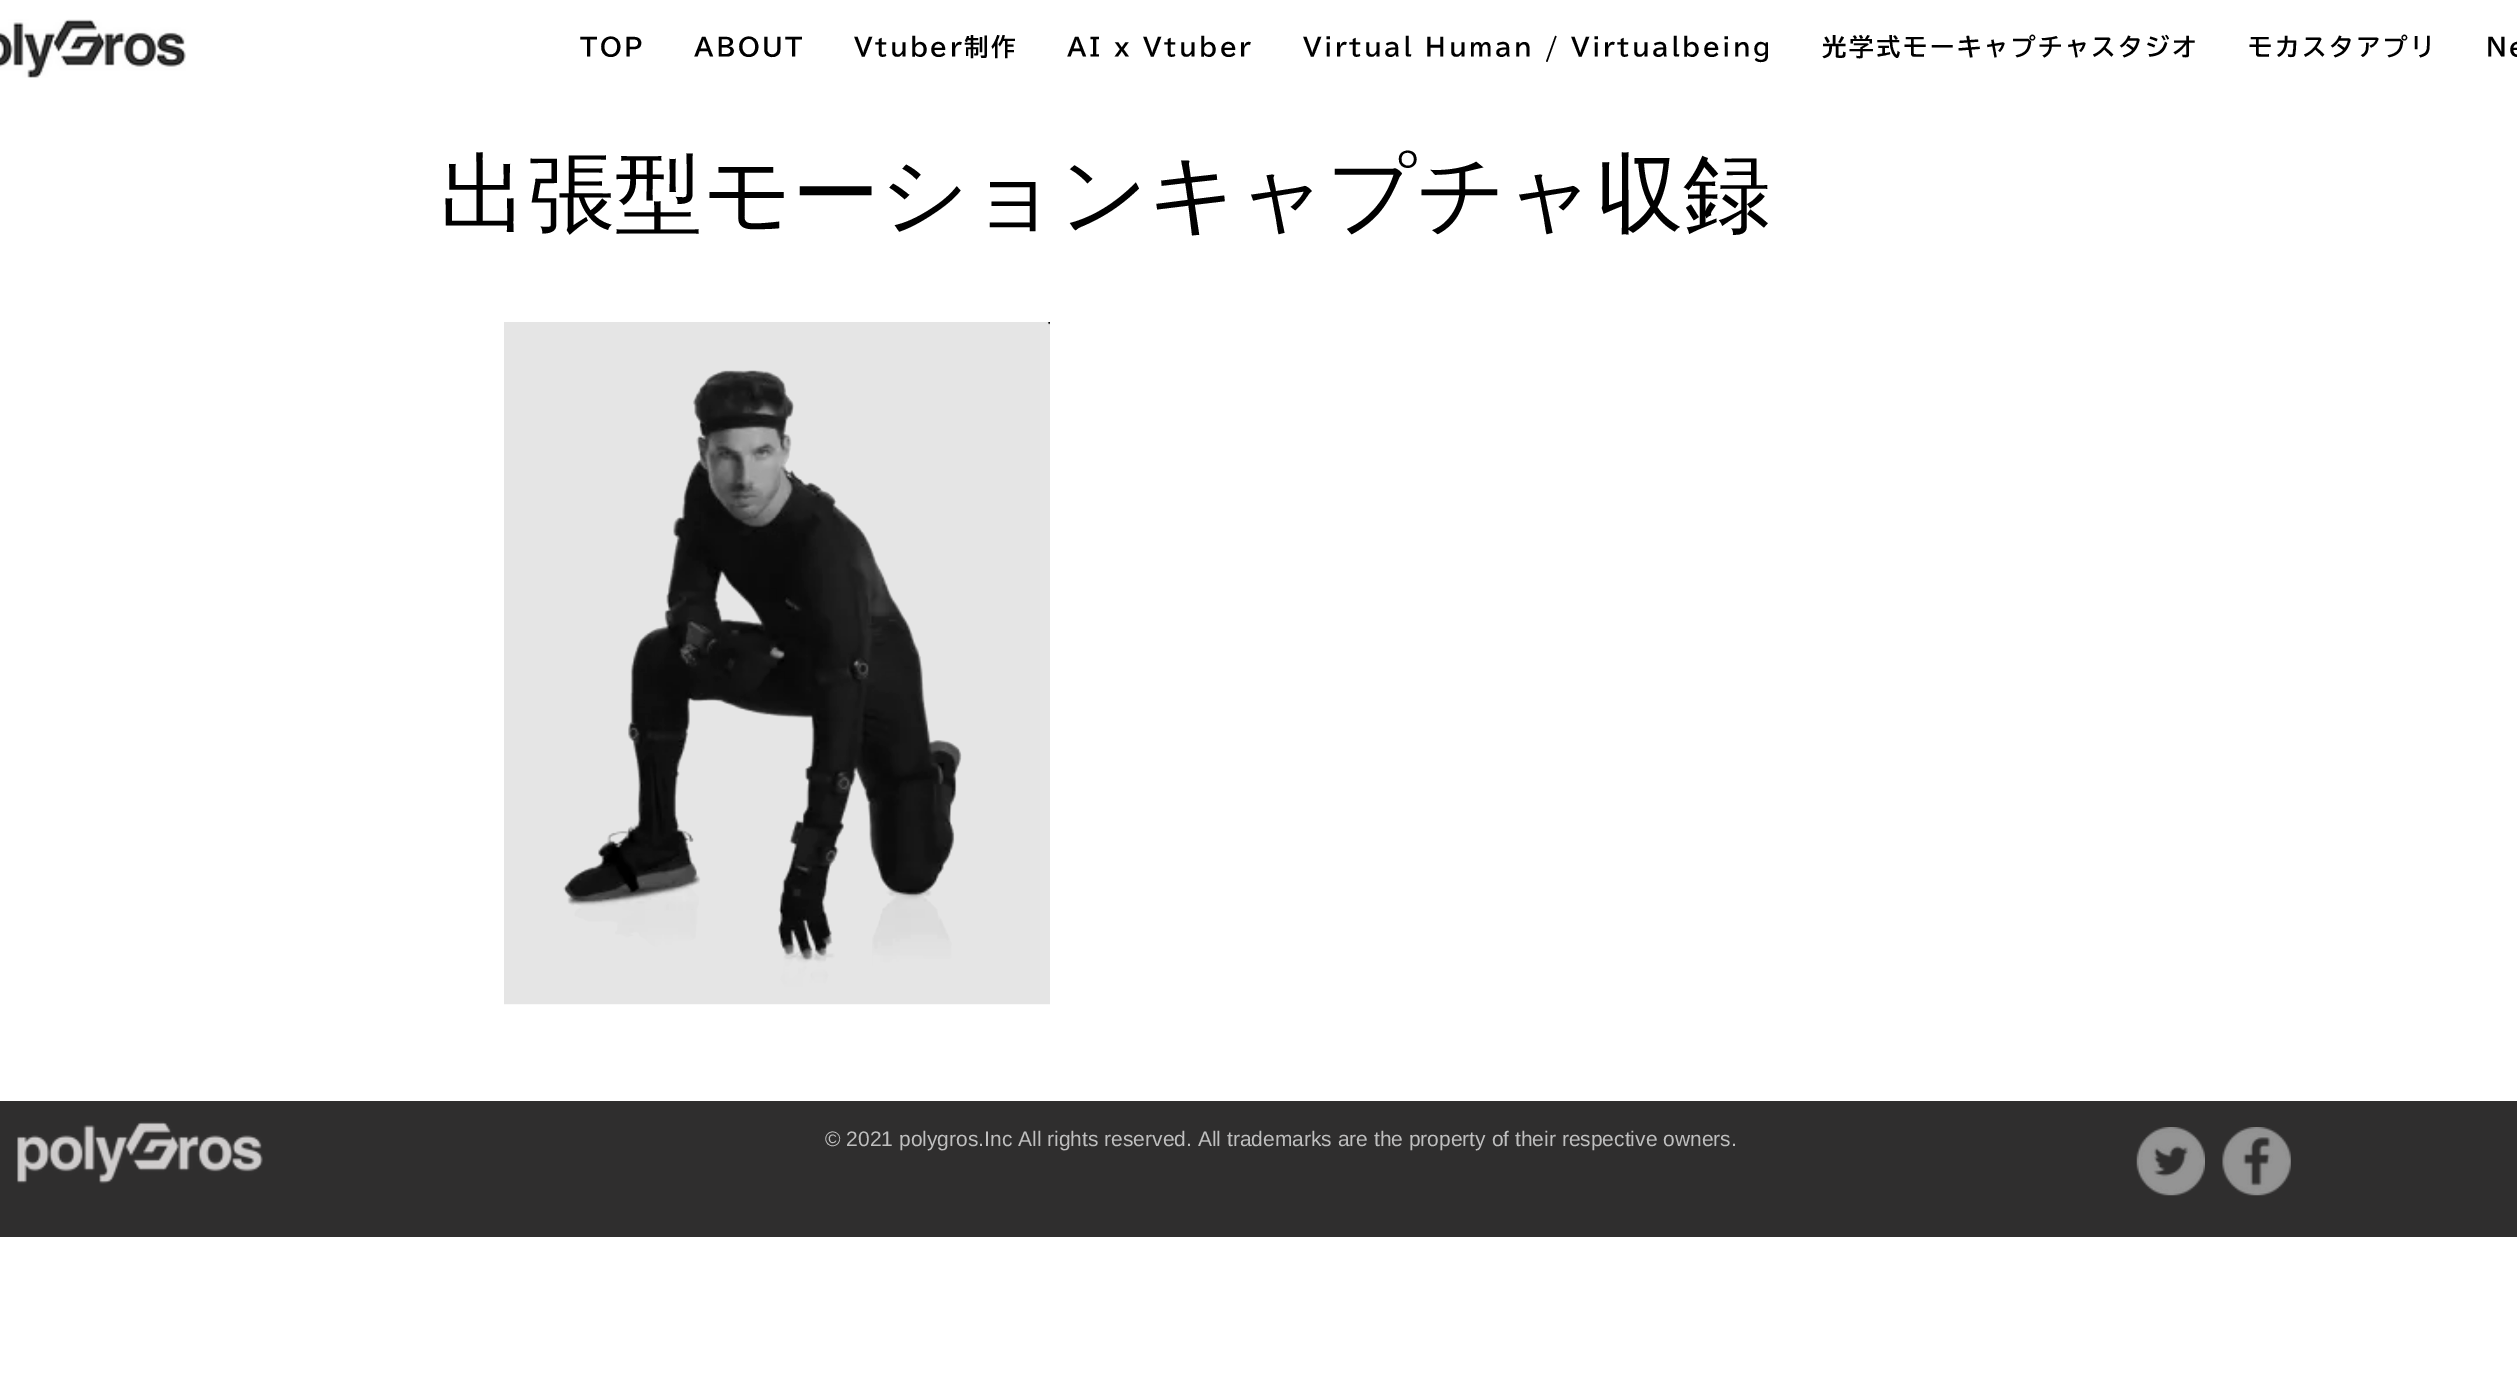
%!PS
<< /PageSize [2517 1394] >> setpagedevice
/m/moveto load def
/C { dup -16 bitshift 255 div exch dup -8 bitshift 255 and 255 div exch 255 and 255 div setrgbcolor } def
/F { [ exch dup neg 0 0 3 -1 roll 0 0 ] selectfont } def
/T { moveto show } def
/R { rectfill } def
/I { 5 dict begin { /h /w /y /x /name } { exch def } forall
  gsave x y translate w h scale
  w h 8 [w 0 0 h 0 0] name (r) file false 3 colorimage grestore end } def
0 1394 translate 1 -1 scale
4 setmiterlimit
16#FFFFFF C
0 0 2517 1394 R
(1.rgb) 0 19 186 59 I
/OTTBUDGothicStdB-Bold 24.5 F
16#000000 C
580 56 m 2.45 0 (TOP) ashow
694 56 m 2.45 0 (ABOUT) ashow
854 56 m 2.45 0 (Vtuber制作) ashow
1067 56 m 2.45 0 (AI x Vtuber) ashow
1303 56 m 2.45 0 (Virtual Human / Virtualbeing) ashow
1822 56 m 2.45 0 (光学式モーキャプチャスタジオ) ashow
2248 56 m 2.45 0 (モカスタアプリ) ashow
2486 56 m 2.45 0 (Ne) ashow
/WenQuanYiZenHei-Medium 87.5 F
(出張型モーションキャプチャ収録) 440 224 T
(2.rgb) 504 322 546 683 I
16#2F2E2E C
0 1101 2517 136 R
(3.rgb) 17 1121 246 63 I
/LiberationSans-Regular 21 F
16#BFBFBF C
(© 2021 polygros.Inc All rights reserved. All trademarks are the property of their respective owners.) 825 1146 T
(4.rgb) 2136 1127 69 69 I
(5.rgb) 2222 1127 69 69 I
showpage
